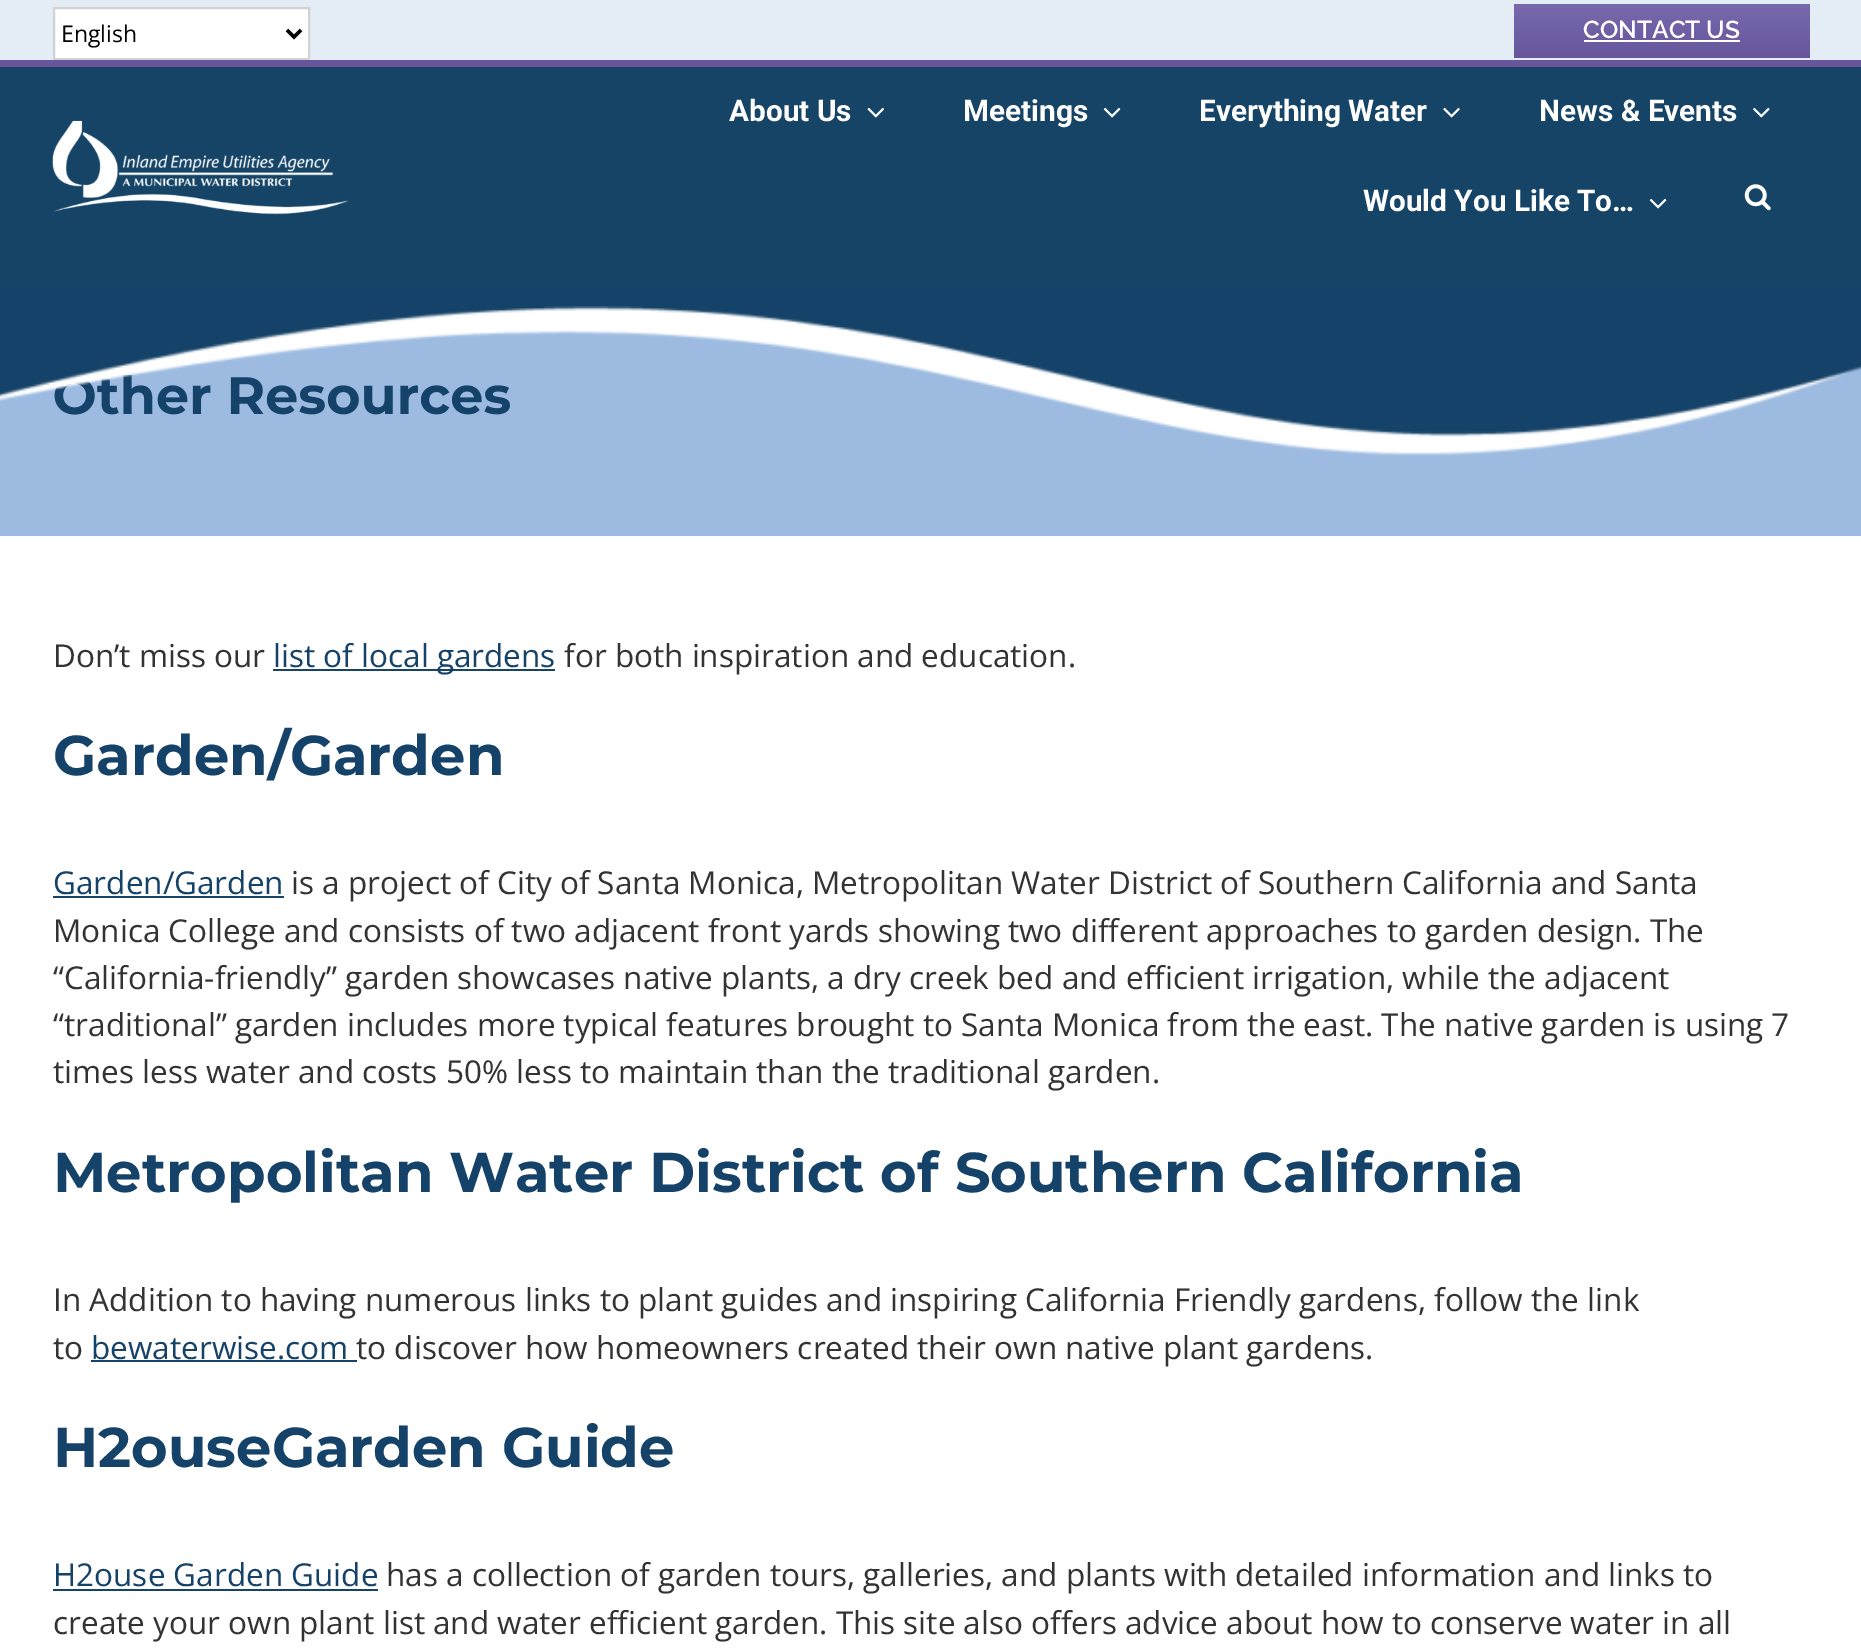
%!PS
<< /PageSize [1861 1648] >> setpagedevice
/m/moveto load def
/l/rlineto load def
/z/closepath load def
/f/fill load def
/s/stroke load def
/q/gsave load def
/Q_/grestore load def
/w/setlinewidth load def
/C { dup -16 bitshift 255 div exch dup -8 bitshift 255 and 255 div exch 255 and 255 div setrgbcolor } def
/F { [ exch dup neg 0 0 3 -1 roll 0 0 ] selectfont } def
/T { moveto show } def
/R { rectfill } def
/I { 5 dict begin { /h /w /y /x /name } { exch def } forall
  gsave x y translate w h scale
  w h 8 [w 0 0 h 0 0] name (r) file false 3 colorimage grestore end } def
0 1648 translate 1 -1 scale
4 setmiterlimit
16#FFFFFF C
0 0 1861 1648 R
16#E4EDF6 C
0 0 1861 60 R
16#FFFFFF C
54 8 m 255 0 l 0 51 l -255 0 l z q f Q_
16#D2D2D2 C
2 w
s
16#000000 C
3.5 w
287 30 m 7 7 l 7 -7 l s
/OpenSans-Regular 23 F
(English) 61 42 T
q 1514 4 m 296 0 l 0 54 l -296 0 l z clip newpath
<< /ShadingType 2 /ColorSpace /DeviceRGB /Coords [1662 3.5 1662 58] /Extend [true true] /Function << /FunctionType 2 /Domain [0 1] /C0 [.471 .408 .675] /C1 [.404 .337 .612] /N 1 >> >> shfill Q_
/Raleway-SemiBold 24.5 F
16#FFFFFF C
(CONTACT US) 1583 38 T
1584 40 156 2 R
16#67569C C
0 60 1861 7 R
16#154467 C
0 67 1861 215 R
(1.rgb) 52 120 296 95 I
/Roboto-Bold 29.75 F
16#FFFFFF C
(About Us) 729 121 T
(2.rgb) 867 107 17 11 I
(Meetings) 963 121 T
(3.rgb) 1103 107 18 11 I
(Everything Water) 1199 121 T
(4.rgb) 1443 107 17 11 I
(News & Events) 1539 121 T
(5.rgb) 1753 107 17 11 I
(Would You Like To…) 1363 211 T
(3.rgb) 1649 198 18 11 I
(6.rgb) 1744 184 27 27 I
16#9DBBE1 C
0 330 1861 206 R
/Montserrat-Bold 52.5 F
16#154268 C
(Other Resources) 53 414 T
(7.rgb) 0 282 1861 174 I
/OpenSans-Regular 31.5 F
16#333333 C
(Don’t miss our) 53 667 T
16#164368 C
273 669 282 2 R
16#154268 C
(list of local gardens) 273 667 T
16#333333 C
(for both inspiration and education.) 564 667 T
/Montserrat-Bold 56 F
16#154268 C
(Garden/Garden) 53 775 T
/OpenSans-Regular 31.5 F
(Garden/Garden) 53 894 T
16#164368 C
53 896 231 2 R
16#333333 C
(is a project of City of Santa Monica, Metropolitan Water District of Southern California and Santa) 291 894 T
(Monica College and consists of two adjacent front yards showing two different approaches to garden design. The) 53 942 T
(“California-friendly” garden showcases native plants, a dry creek bed and efficient irrigation, while the adjacent) 53 989 T
(“traditional” garden includes more typical features brought to Santa Monica from the east. The native garden is using 7) 53 1036 T
(times less water and costs 50% less to maintain than the traditional garden.) 53 1083 T
/Montserrat-Bold 56 F
16#154268 C
(Metropolitan Water District of Southern California) 53 1192 T
/OpenSans-Regular 31.5 F
16#333333 C
(In Addition to having numerous links to plant guides and inspiring California Friendly gardens, follow the link) 53 1311 T
(to) 53 1359 T
16#154268 C
(bewaterwise.com) 91 1359 T
16#164368 C
91 1360 266 2 R
16#333333 C
(to discover how homeowners created their own native plant gardens.) 356 1359 T
/Montserrat-Bold 56 F
16#154268 C
(H2ouseGarden Guide) 53 1467 T
/OpenSans-Regular 31.5 F
(H2ouse Garden Guide) 53 1586 T
16#164368 C
53 1589 325 2 R
16#333333 C
(has a collection of garden tours, galleries, and plants with detailed information and links to) 386 1586 T
(create your own plant list and water efficient garden. This site also offers advice about how to conserve water in all) 53 1634 T
showpage
